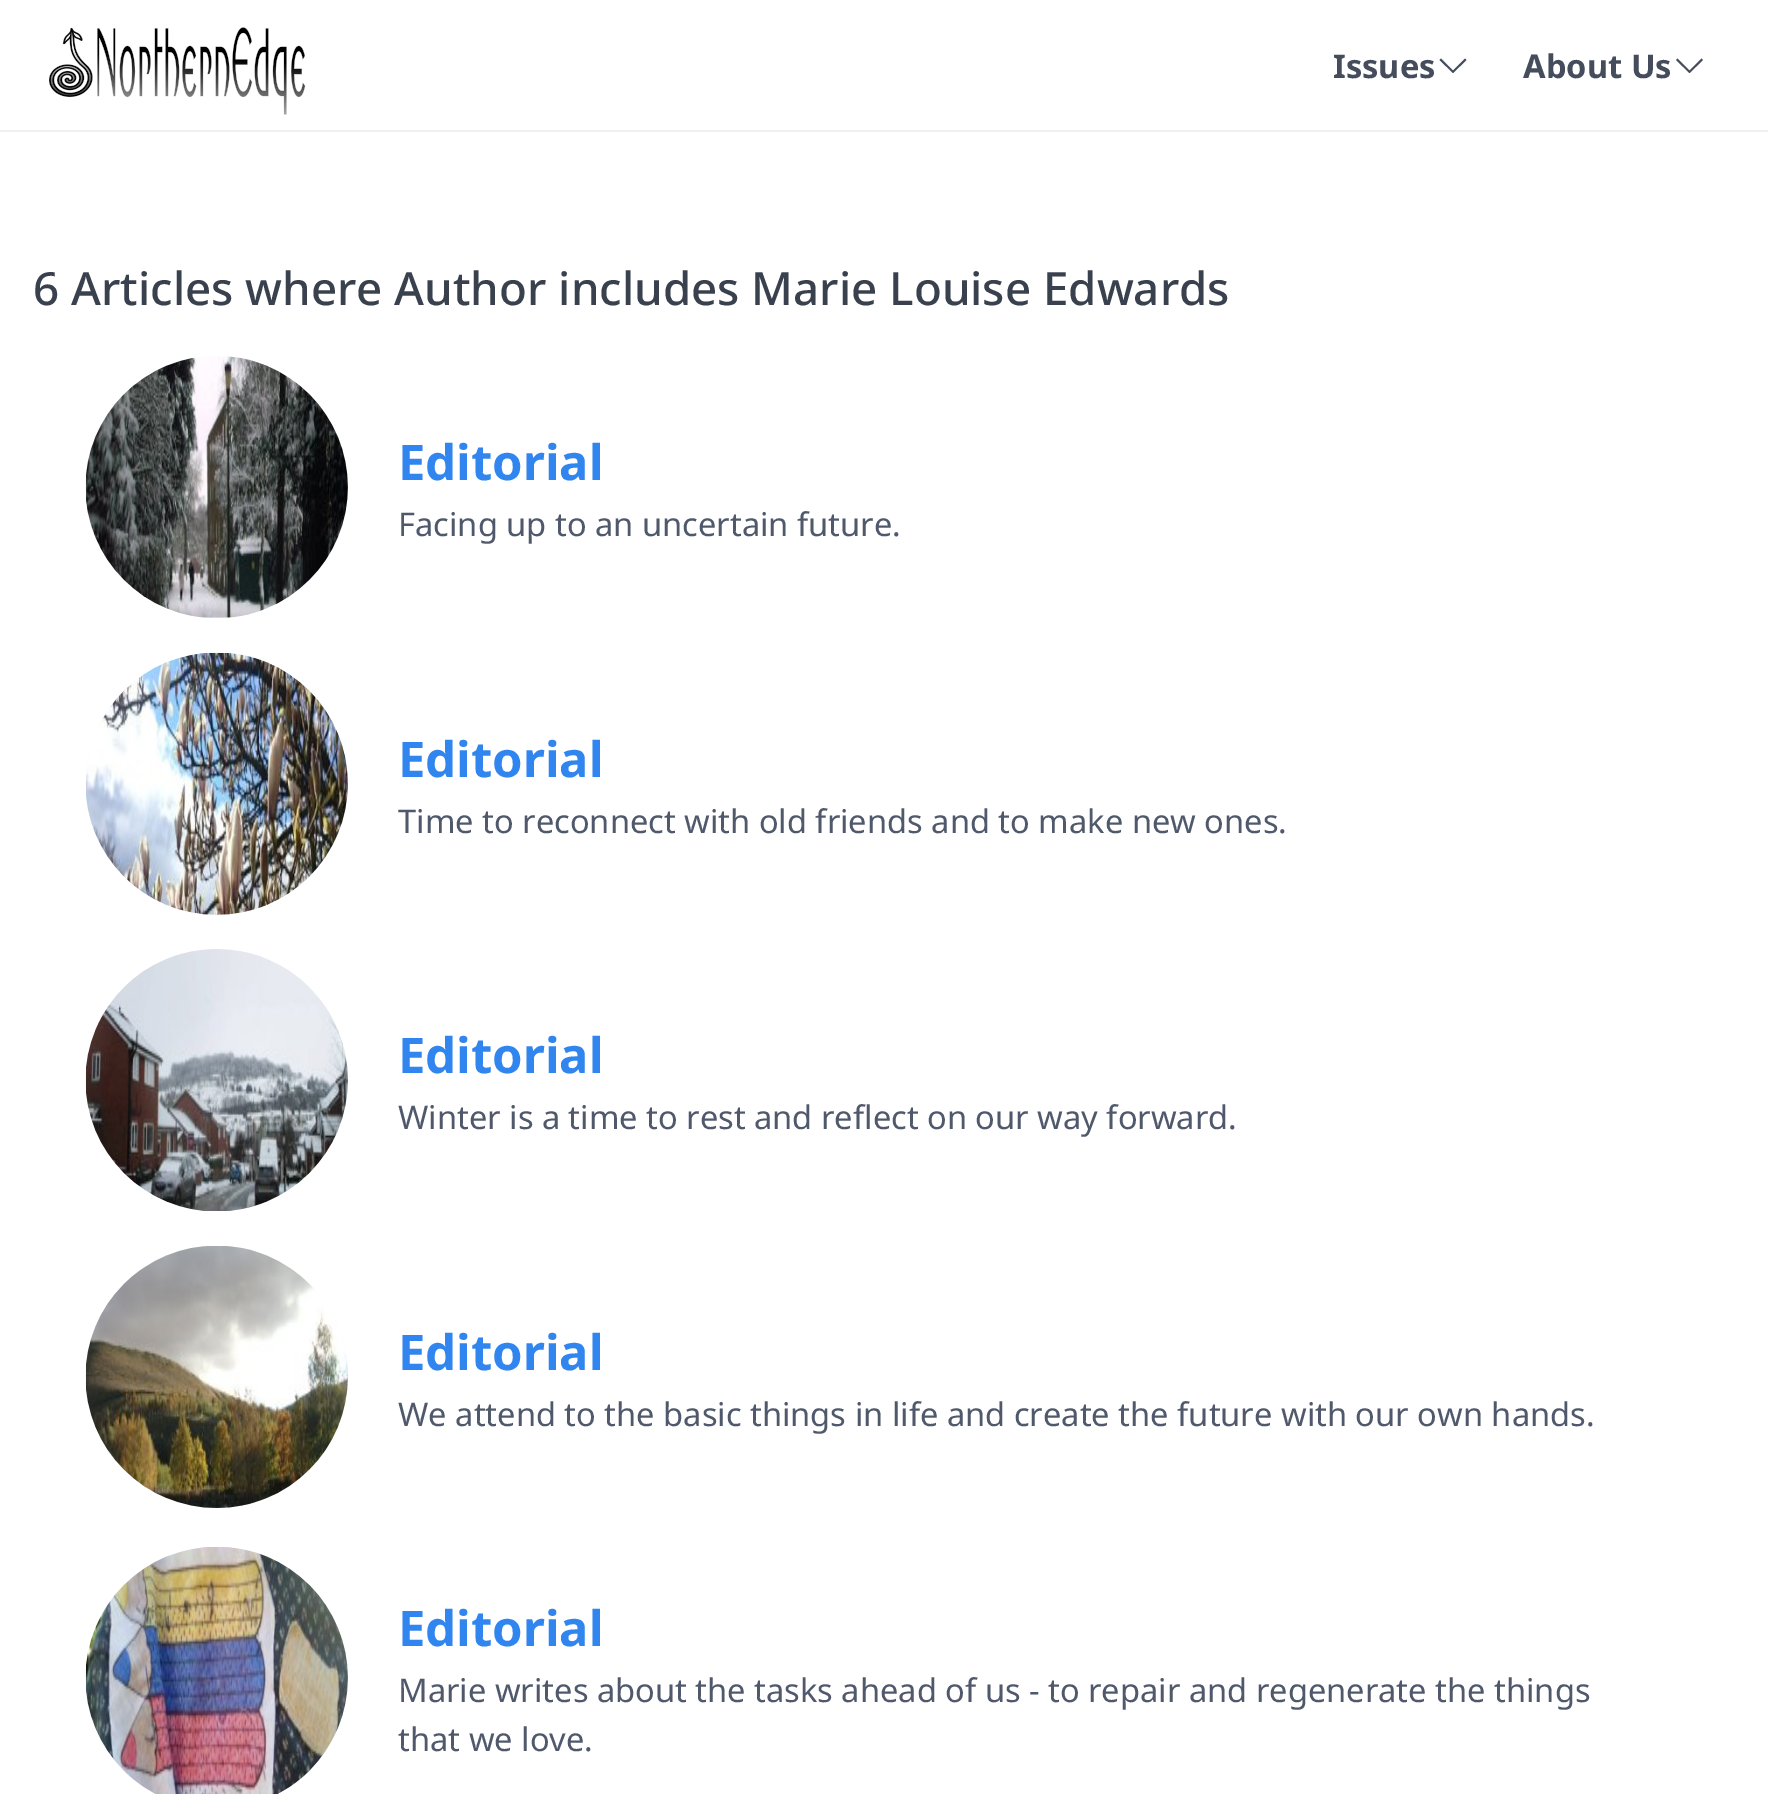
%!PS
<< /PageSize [1768 1794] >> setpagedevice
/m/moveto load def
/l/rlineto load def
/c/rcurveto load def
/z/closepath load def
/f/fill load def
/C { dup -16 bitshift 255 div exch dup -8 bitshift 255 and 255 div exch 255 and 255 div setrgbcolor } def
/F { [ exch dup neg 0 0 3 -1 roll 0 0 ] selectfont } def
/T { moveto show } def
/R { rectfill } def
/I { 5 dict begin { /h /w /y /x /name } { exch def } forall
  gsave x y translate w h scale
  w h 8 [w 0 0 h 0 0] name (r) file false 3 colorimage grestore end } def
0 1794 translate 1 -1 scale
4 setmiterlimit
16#FFFFFF C
0 0 1768 1794 R
16#EEF0F3 C
0 130 1768 2 R
(1.rgb) 49 27 257 88 I
/NotoSans-Bold 32.65 F
16#454D5D C
(Issues) 1333 78 T
1441 58.5 m 12 12 l 12 -12 l 1.5 1.5 l -13.5 13 l -13.5 -13 l z f
(About Us) 1523 78 T
1677.5 58.5 m 12 12 l 12 -12 l 1.5 1.5 l -13.5 13 l -13.5 -13 l z f
/NotoSans-Medium 45.7 F
16#3A414E C
(6 Articles where Author includes Marie Louise Edwards) 33 305 T
16#F8F8F8 C
217 356 m 72 0 131 59 131 131 c 0 70 -54 126 -122 131 c -18 0 l -64 -4 -116 -55 -122 -118 c 0 -26 l 6 -66 62 -118 131 -118 c z f
(2.rgb) 85 356 263 262 I
/NotoSans-Bold 49 F
16#3085EE C
(Editorial) 398 480 T
/NotoSans-Regular 32.65 F
16#50596C C
(Facing up to an uncertain future.) 398 536 T
16#F8F8F8 C
86 771 m 6 -62 55 -112 118 -118 c 26 0 l 66 7 118 63 118 131 c 0 72 -59 131 -131 131 c -69 0 -125 -52 -131 -119 c z f
(3.rgb) 86 652 262 263 I
/NotoSans-Bold 49 F
16#3085EE C
(Editorial) 398 777 T
/NotoSans-Regular 32.65 F
16#50596C C
(Time to reconnect with old friends and to make new ones.) 398 833 T
16#F8F8F8 C
86 1067 m 6 -65 60 -116 127 -118 c 8 0 l 70 2 127 60 127 131 c 0 69 -53 126 -121 131 c -21 0 l -63 -5 -114 -55 -120 -118 c z f
(4.rgb) 85 949 263 262 I
/NotoSans-Bold 49 F
16#3085EE C
(Editorial) 398 1073 T
/NotoSans-Regular 32.65 F
16#50596C C
(Winter is a time to rest and reflect on our way forward.) 398 1129 T
16#F8F8F8 C
86 1364 m 6 -63 56 -113 119 -118 c 23 0 l 67 6 120 62 120 131 c 0 72 -59 131 -131 131 c -69 0 -125 -52 -131 -119 c z f
(5.rgb) 85 1246 263 262 I
/NotoSans-Bold 49 F
16#3085EE C
(Editorial) 398 1370 T
/NotoSans-Regular 32.65 F
16#50596C C
(We attend to the basic things in life and create the future with our own hands.) 398 1426 T
16#F8F8F8 C
86 1665 m 6 -63 57 -113 121 -118 c 20 0 l 68 5 121 62 121 131 c 0 72 -59 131 -131 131 c -69 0 -125 -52 -131 -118 c z f
(6.rgb) 85 1547 263 247 I
/NotoSans-Bold 49 F
16#3085EE C
(Editorial) 398 1646 T
/NotoSans-Regular 32.65 F
16#50596C C
(Marie writes about the tasks ahead of us - to repair and regenerate the things) 398 1702 T
(that we love.) 398 1751 T
showpage
